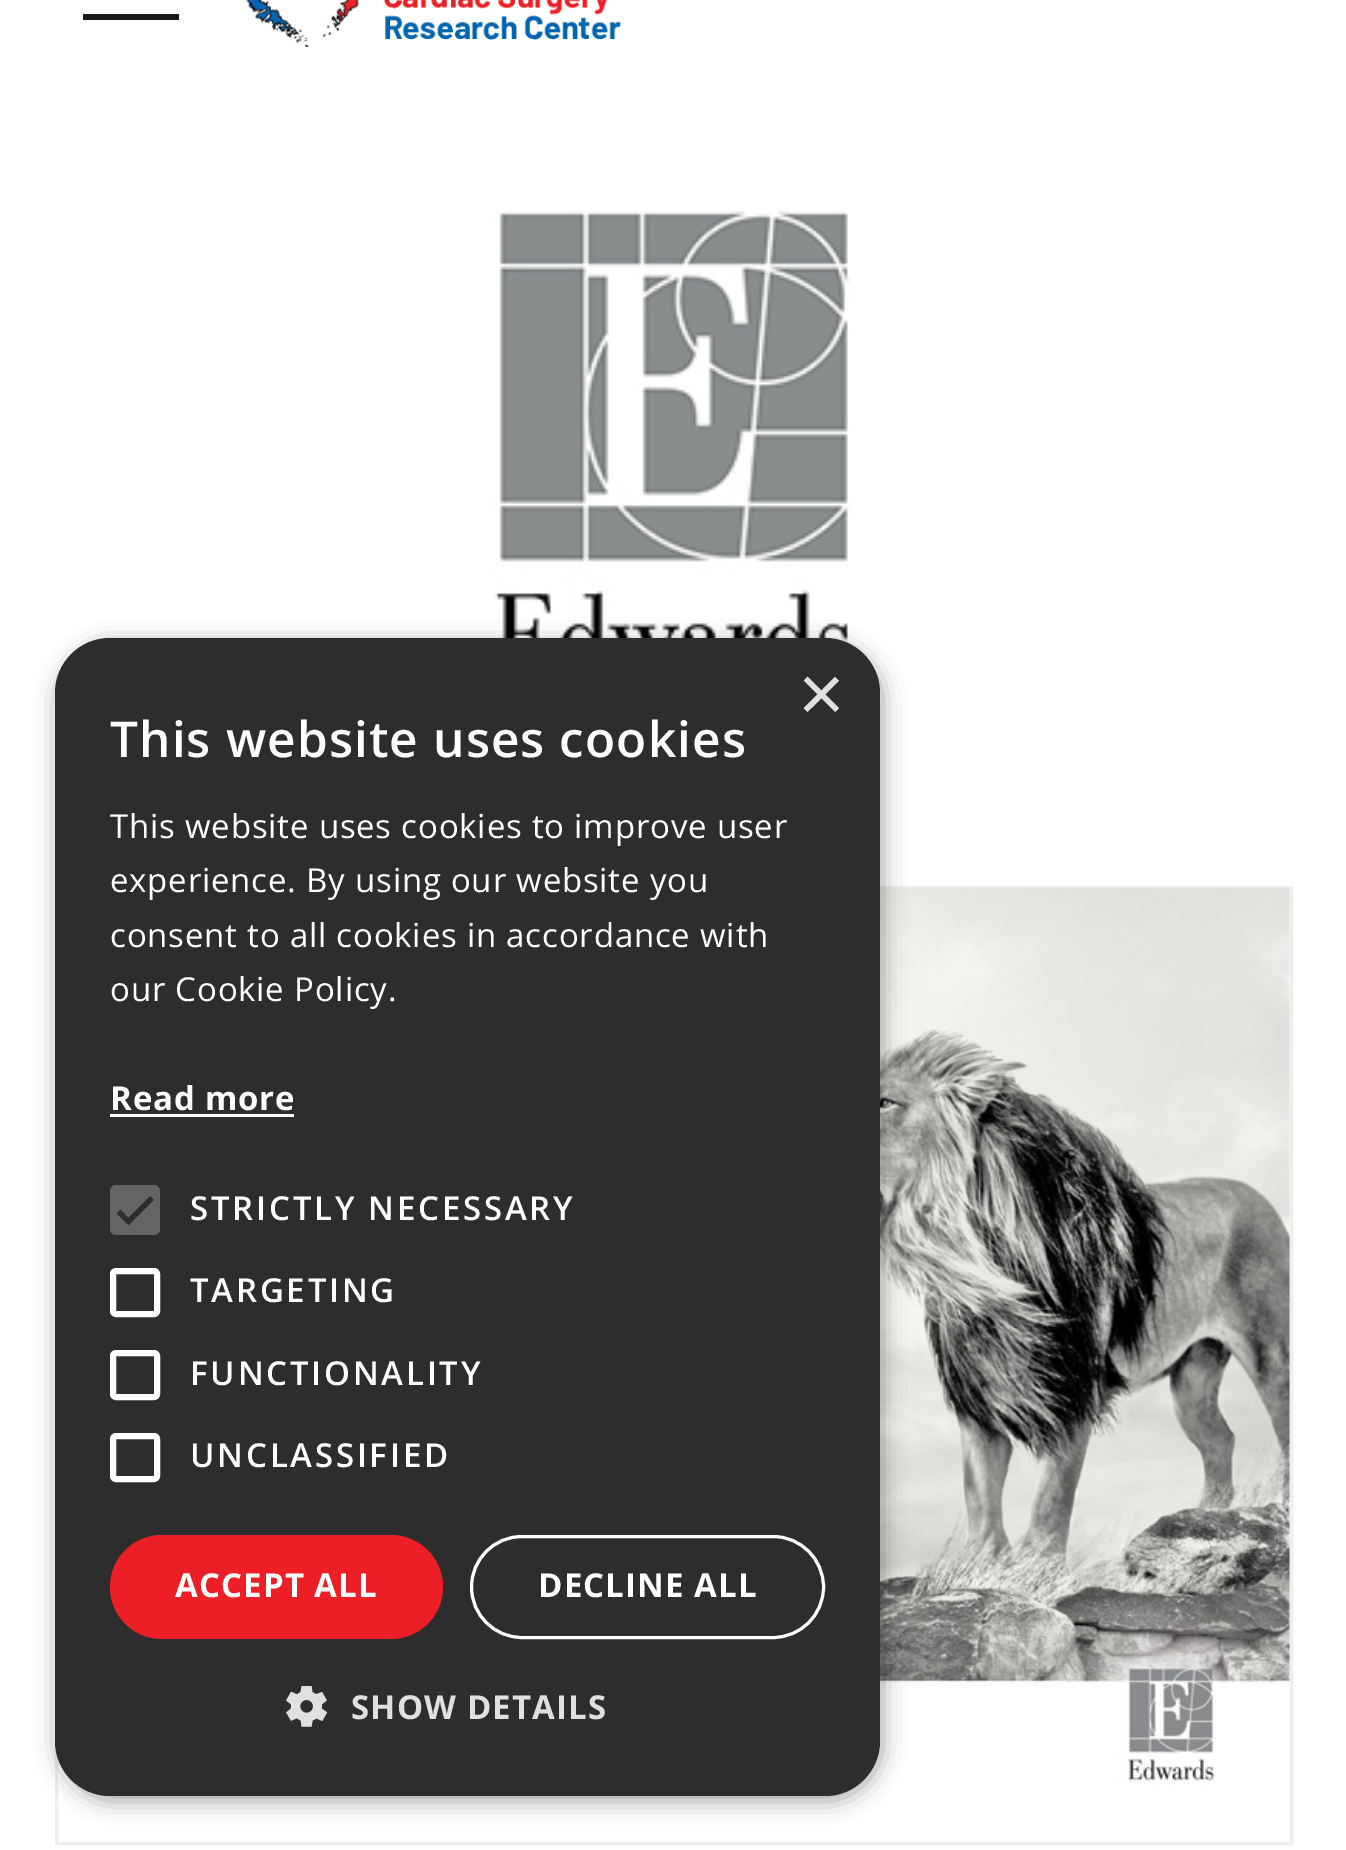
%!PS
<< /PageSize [1346 1850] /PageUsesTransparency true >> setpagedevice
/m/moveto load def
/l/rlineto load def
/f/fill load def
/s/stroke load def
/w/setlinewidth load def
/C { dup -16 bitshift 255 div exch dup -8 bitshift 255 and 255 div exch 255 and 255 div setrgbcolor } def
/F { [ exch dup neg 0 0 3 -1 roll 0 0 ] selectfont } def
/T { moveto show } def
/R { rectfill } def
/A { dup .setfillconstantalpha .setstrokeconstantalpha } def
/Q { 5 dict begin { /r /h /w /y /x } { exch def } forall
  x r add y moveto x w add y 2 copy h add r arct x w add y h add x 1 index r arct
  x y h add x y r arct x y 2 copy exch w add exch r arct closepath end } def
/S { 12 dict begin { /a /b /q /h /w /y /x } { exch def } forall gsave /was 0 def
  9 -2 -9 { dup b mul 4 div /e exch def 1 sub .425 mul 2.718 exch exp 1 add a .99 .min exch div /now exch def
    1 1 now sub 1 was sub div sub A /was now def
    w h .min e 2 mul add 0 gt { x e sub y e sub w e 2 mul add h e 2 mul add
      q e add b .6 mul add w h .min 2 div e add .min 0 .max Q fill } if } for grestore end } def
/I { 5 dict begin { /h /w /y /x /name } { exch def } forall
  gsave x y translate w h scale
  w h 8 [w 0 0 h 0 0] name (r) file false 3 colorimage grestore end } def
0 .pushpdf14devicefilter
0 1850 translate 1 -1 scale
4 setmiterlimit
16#FFFFFF C
0 0 1346 1850 R
16#181818 C
83 14 96 6 R
(1.rgb) 246 0 375 47 I
(2.rgb) 494 211 359 435 I
16#EEEEEE C
3 w
56.5 887.5 1235 956 rectstroke
(3.rgb) 57 888 1233 897 I
16#000000 C
58 644 825 1157 55 11 .35 S
16#2D2D2D C
55 638 825 1158 55 Q f
/LiberationSans-Regular 80 F
16#E0E0E0 C
(×) 798 721 T
/OpenSans-SemiBold 49.5 F
16#FFFFFF C
110 757 m 1.1 0 (This website uses cookies) ashow
/OpenSans-Regular 33 F
110 838 m .8 0 (This website uses cookies to improve user) ashow
110 892 m .8 0 (experience. By using our website you) ashow
110 947 m .8 0 (consent to all cookies in accordance with) ashow
110 1001 m .8 0 (our Cookie Policy.) ashow
/OpenSans-Bold 33 F
110 1110 m .8 0 (Read more) ashow
110 1114 184 3 R
16#646464 C
110 1185 50 50 6 Q f
16#2D2D2D C
5 w
118.5 1211.5 m 10 10 l 23.5 -23.5 l s
/OpenSans-SemiBold 33 F
16#FFFFFF C
190 1220 m 2.75 0 (STRICTLY NECESSARY) ashow
6 w
113 1271 44 43 3 Q s
190 1302 m 2.75 0 (TARGETING) ashow
113 1353 44 44 3 Q s
190 1385 m 2.75 0 (FUNCTIONALITY) ashow
113 1436 44 43 3 Q s
190 1467 m 2.75 0 (UNCLASSIFIED) ashow
16#EB1F25 C
110 1535 333 104 52 Q f
/OpenSans-Bold 33 F
16#FFFFFF C
175 1597 m 1.1 0 (ACCEPT ALL) ashow
3 w
471.5 1536.5 352 101 50.5 Q s
538 1597 m 1.1 0 (DECLINE ALL) ashow
(4.rgb) 286 1686 41 41 I
16#E0E0E0 C
351 1719 m 1.1 0 (SHOW DETAILS) ashow
.poppdf14devicefilter showpage
